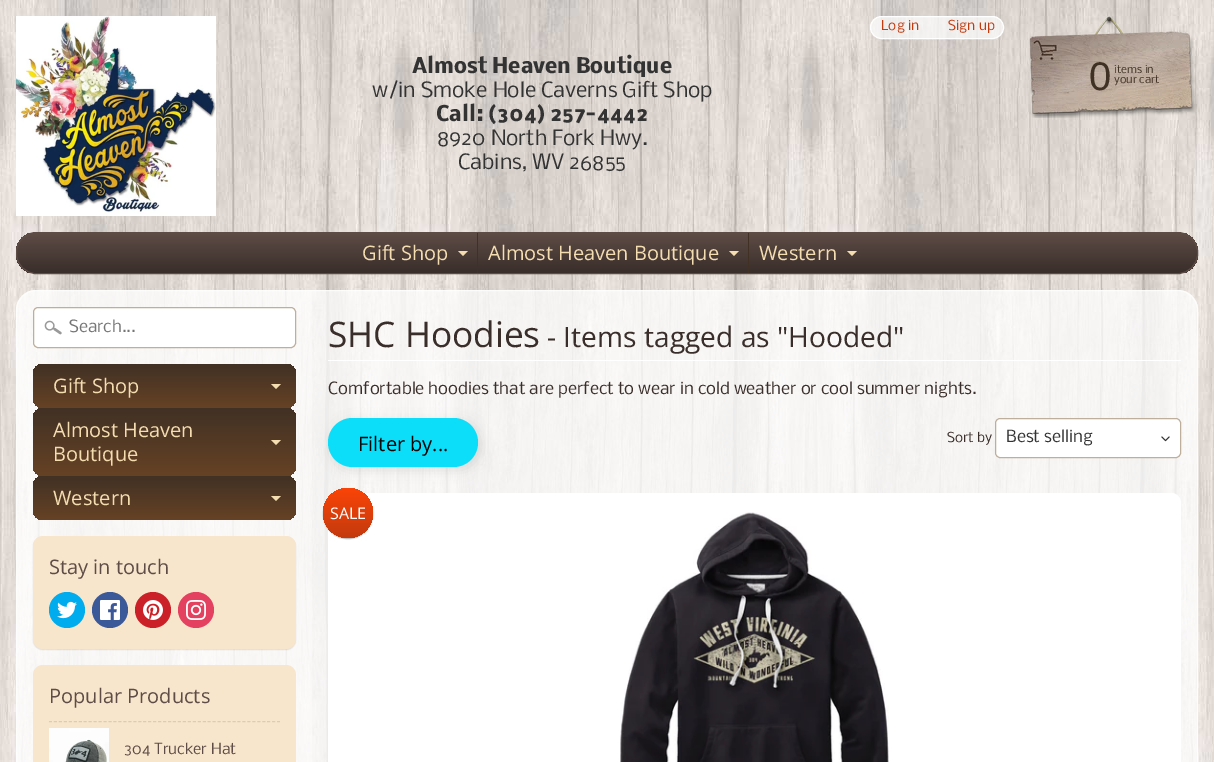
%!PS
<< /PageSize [1214 762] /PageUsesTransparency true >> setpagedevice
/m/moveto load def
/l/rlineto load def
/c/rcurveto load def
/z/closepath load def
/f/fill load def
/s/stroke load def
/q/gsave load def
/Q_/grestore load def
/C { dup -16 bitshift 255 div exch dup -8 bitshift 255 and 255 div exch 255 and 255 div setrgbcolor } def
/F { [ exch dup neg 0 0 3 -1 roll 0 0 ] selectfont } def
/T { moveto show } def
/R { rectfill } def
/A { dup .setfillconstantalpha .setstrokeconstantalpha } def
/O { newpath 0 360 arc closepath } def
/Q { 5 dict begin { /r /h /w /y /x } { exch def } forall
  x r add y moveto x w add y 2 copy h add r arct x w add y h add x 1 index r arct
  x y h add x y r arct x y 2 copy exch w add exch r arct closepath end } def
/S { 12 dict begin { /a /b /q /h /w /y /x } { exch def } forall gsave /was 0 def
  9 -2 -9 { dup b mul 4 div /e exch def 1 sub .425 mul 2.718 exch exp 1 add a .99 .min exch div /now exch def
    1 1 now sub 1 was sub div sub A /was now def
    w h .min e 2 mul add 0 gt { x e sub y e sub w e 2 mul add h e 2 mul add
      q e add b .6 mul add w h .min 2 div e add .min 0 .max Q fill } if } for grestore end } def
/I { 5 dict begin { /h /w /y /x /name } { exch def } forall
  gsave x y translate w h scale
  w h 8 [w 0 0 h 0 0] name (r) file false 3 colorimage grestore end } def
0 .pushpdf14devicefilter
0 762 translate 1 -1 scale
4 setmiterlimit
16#FFFFFF C
0 0 1214 762 R
(1.rgb) 0 0 1214 762 I
0.7 A
870.5 16.5 133 22 11 Q f
1 A
870.5 16.5 133 22 11 Q s
/Nobile-Regular 13 F
16#C33A0E C
(Log in) 881 30 T
(Sign up) 948 30 T
(2.rgb) 16 16 200 200 I
/Nobile-Bold 20 F
16#333333 C
(Almost Heaven Boutique) 412 73 T
/Nobile-Regular 20 F
(w/in Smoke Hole Caverns Gift Shop) 372 97 T
/Nobile-Bold 20 F
(Call: \(304\) 257-4442) 436 121 T
/Nobile-Regular 20 F
(8920 North Fork Hwy.) 437 145 T
(Cabins, WV 26855) 458 169 T
(3.rgb) 1028 16 168 102 I
/LiberationSans-Regular 40 F
16#403125 C
(0) 1089 90 T
/Nobile-Regular 10.5 F
(items in) 1114 73 T
(your cart) 1114 83 T
q
16 232 1182 42 20 Q clip newpath
q 16 233 m 1182 0 l 0 40 l -1182 0 l z clip newpath
<< /ShadingType 2 /ColorSpace /DeviceRGB /Coords [607 233 607 273] /Extend [true true] /Function << /FunctionType 2 /Domain [0 1] /C0 [.369 .298 .275] /C1 [.224 .18 .165] /N 1 >> >> shfill Q_
Q_
16#5E4C46 C
16.5 232.5 1181 41 19.5 Q s
/OpenSans-Regular 20 F
16#F4DDB1 C
(Gift Shop) 362 260 T
458 251 m 10 0 l -5 5 l z f
16#413124 C
477 233 1 40 R
16#F4DDB1 C
(Almost Heaven Boutique) 488 260 T
729 251 m 10 0 l -5 5 l z f
16#413124 C
748 233 1 40 R
16#F4DDB1 C
(Western) 759 260 T
847 251 m 10 0 l -5 5 l z f
0.75 A
16#FFFFFF C
16 290 1182 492 20 Q f
0.7 A
16.5 290.5 1181 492 19.5 Q s
0.25 A
36 291 m 276 0 l 0 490 l -276 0 l -10.5 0 -19 -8.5 -19 -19 c 0 -452 l 0 -10.5 8.5 -19 19 -19 c z f
1 A
33 307 263 41 5 Q f
(4.rgb) 44 320 18 15 I
16#BDAF9B C
33.5 307.5 262 40 4.5 Q s
/Nobile-Regular 16 F
16#757575 C
(Search...) 69 332 T
q 33 364 263 44 10 Q clip newpath
<< /ShadingType 2 /ColorSpace /DeviceRGB /Coords [165 364 165 408] /Extend [true true] /Function << /FunctionType 2 /Domain [0 1] /C0 [.255 .192 .141] /C1 [.4 .259 .141] /N 1 >> >> shfill Q_
/OpenSans-Regular 20 F
16#F4DDB1 C
(Gift Shop) 53 393 T
271 384 m 10 0 l -5 5 l z f
q 33 408 263 68 10 Q clip newpath
<< /ShadingType 2 /ColorSpace /DeviceRGB /Coords [165 408 165 476] /Extend [true true] /Function << /FunctionType 2 /Domain [0 1] /C0 [.255 .192 .141] /C1 [.4 .259 .141] /N 1 >> >> shfill Q_
(Almost Heaven) 53 437 T
271 440 m 10 0 l -5 5 l z f
(Boutique) 53 461 T
q 33 476 263 44 10 Q clip newpath
<< /ShadingType 2 /ColorSpace /DeviceRGB /Coords [165 476 165 520] /Extend [true true] /Function << /FunctionType 2 /Domain [0 1] /C0 [.255 .192 .141] /C1 [.4 .259 .141] /N 1 >> >> shfill Q_
(Western) 53 505 T
271 496 m 10 0 l -5 5 l z f
16#000000 C
33 537 263 113 10 .5 .1 S
16#F7E5CC C
33 536 263 113 10 Q f
16#5E4C46 C
(Stay in touch) 49 574 T
16#00ACED C
67 610 18 O f
(5.rgb) 57 601 20 18 I
16#3B5998 C
110 610 18 O f
(6.rgb) 100 600 20 20 I
16#CB2027 C
153 610 18 O f
(7.rgb) 143 600 20 20 I
16#E4405F C
196 610 18 O f
(8.rgb) 186 600 20 20 I
16#F7E5CC C
33 665 263 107 10 Q f
16#5E4C46 C
(Popular Products) 49 703 T
16#DECCB2 C
[3 1.96] 0 setdash
49 721.5 m 231 0 l s
(9.rgb) 49 728 60 34 I
/Nobile-Regular 14.5 F
16#5E4C46 C
(304 Trucker Hat) 124 754 T
16#FFFFFF C
328 360 853 1 R
/OpenSans-Regular 35.25 F
16#392E2A C
(SHC Hoodies) 328 347 T
/OpenSans-Regular 28.2 F
(- Items tagged as "Hooded") 547 347 T
/Nobile-Regular 16 F
(Comfortable hoodies that are perfect to wear in cold weather or cool summer nights.) 328 394 T
16#000000 C
331 421 150 49 24.5 6 .1 S
16#0CDDF8 C
328 418 150 49 24.5 Q f
/OpenSans-Regular 20 F
16#030303 C
(Filter by...) 358 451 T
/Nobile-Regular 13 F
16#392E2A C
(Sort by) 947 442 T
16#FFFFFF C
995 418 186 40 5 Q f
(10.rgb) 1161 436 9 6 I
16#BDAF9B C
[] 0 setdash
995.5 418.5 185 39 4.5 Q s
/Nobile-Regular 16 F
16#333333 C
(Best selling) 1006 442 T
16#FFFFFF C
328 493 853 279 10 Q f
16#000000 C
323 489 50 50 25 .5 .3 S
q 348 513 25 O clip newpath
<< /ShadingType 2 /ColorSpace /DeviceRGB /Coords [348 488 348 538] /Extend [true true] /Function << /FunctionType 2 /Domain [0 1] /C0 [.98 .267 .031] /C1 [.765 .227 .055] /N 1 >> >> shfill Q_
/OpenSans-Regular 16 F
16#FFFFFF C
(SALE) 330 519 T
(11.rgb) 620 512 269 250 I
.poppdf14devicefilter showpage
